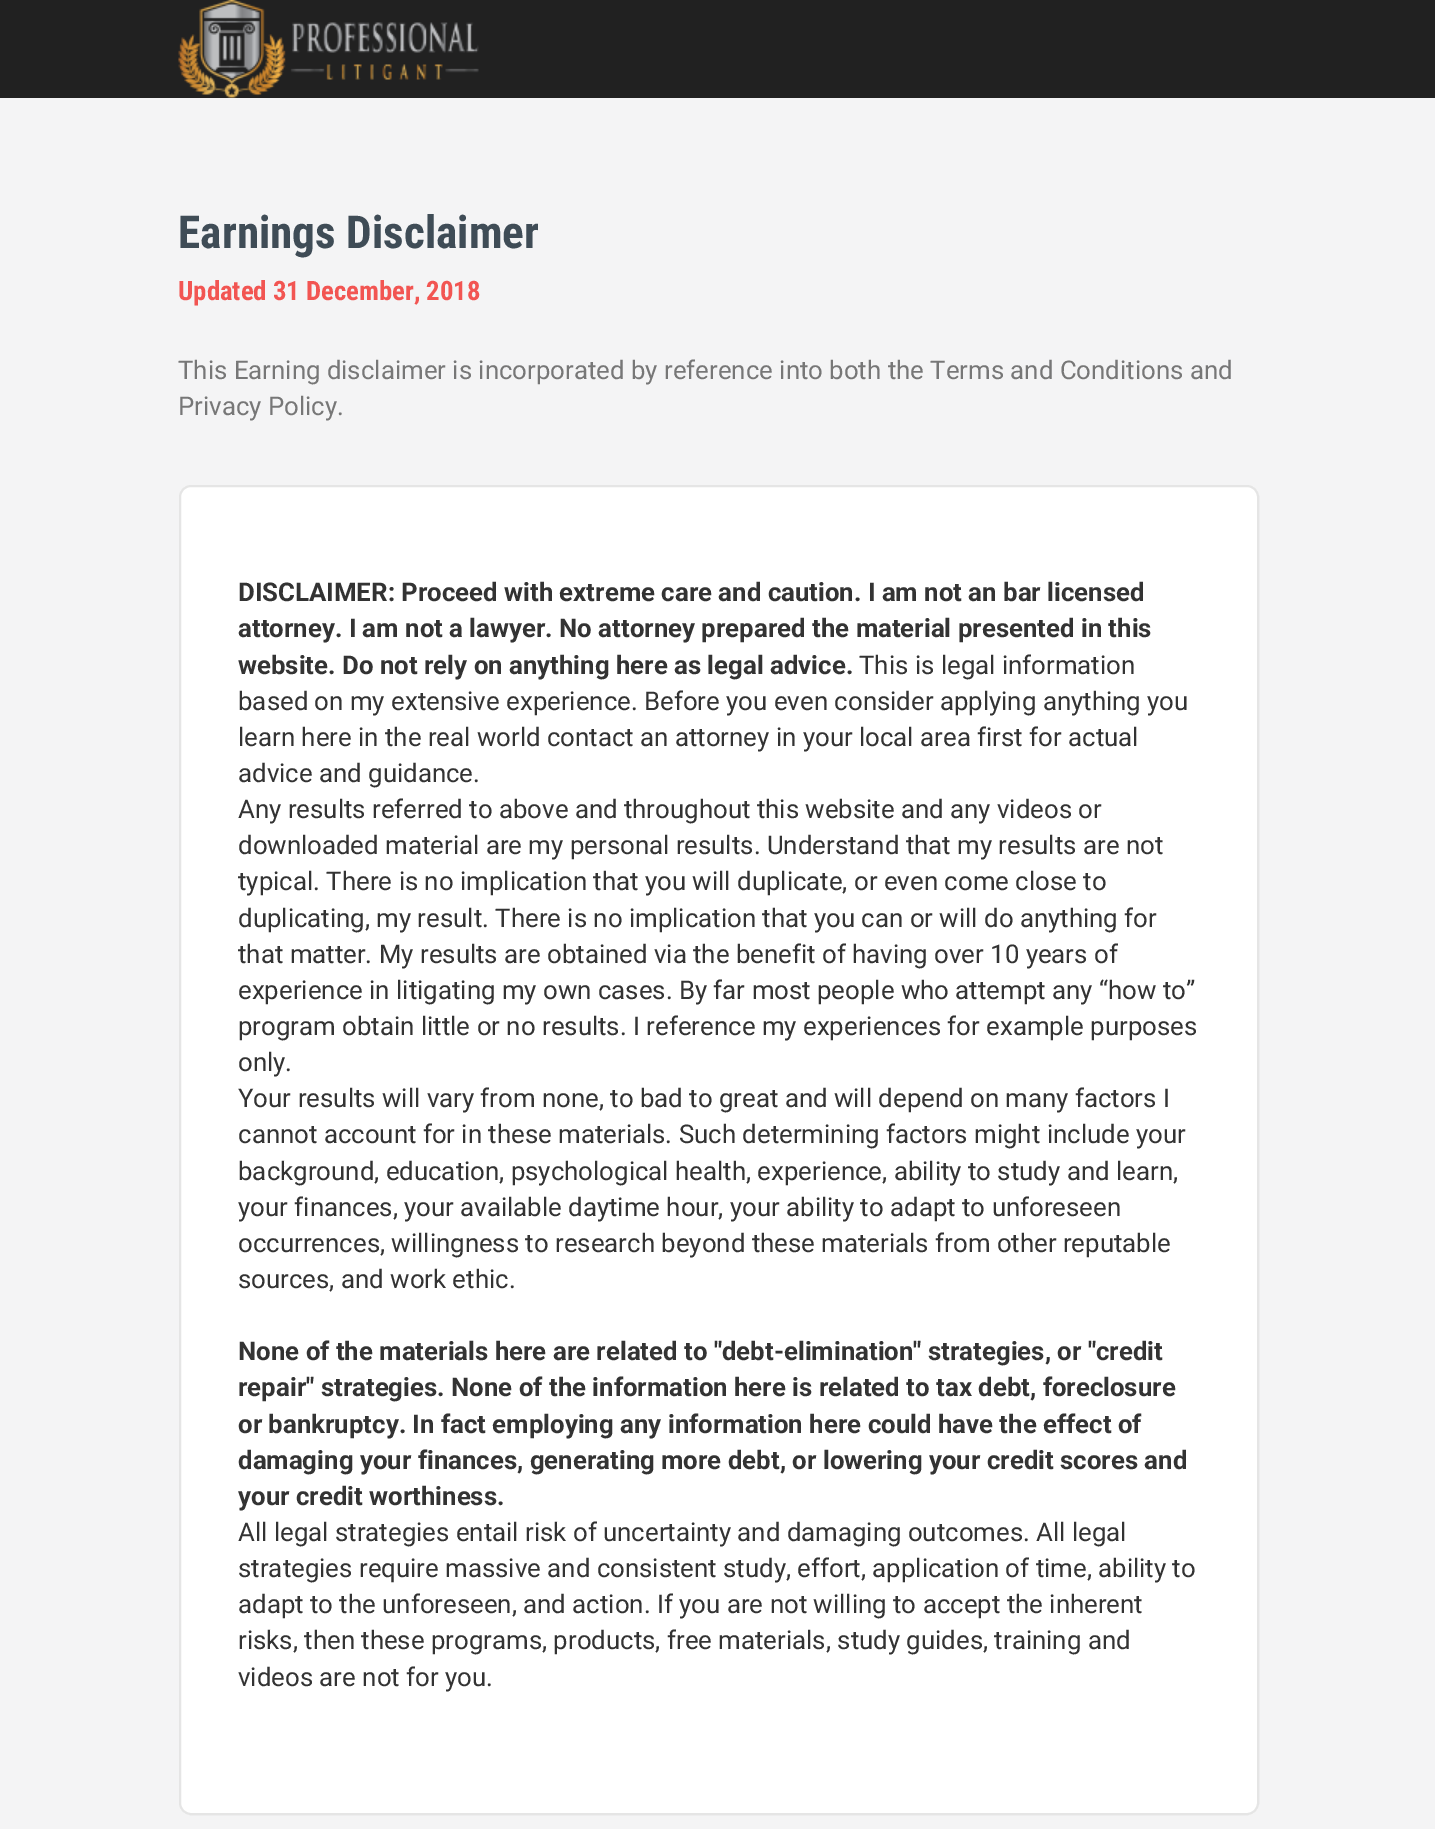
%!PS
<< /PageSize [1435 1829] /PageUsesTransparency true >> setpagedevice
/f/fill load def
/s/stroke load def
/w/setlinewidth load def
/C { dup -16 bitshift 255 div exch dup -8 bitshift 255 and 255 div exch 255 and 255 div setrgbcolor } def
/F { [ exch dup neg 0 0 3 -1 roll 0 0 ] selectfont } def
/T { moveto show } def
/R { rectfill } def
/A { dup .setfillconstantalpha .setstrokeconstantalpha } def
/Q { 5 dict begin { /r /h /w /y /x } { exch def } forall
  x r add y moveto x w add y 2 copy h add r arct x w add y h add x 1 index r arct
  x y h add x y r arct x y 2 copy exch w add exch r arct closepath end } def
/I { 5 dict begin { /h /w /y /x /name } { exch def } forall
  gsave x y translate w h scale
  w h 8 [w 0 0 h 0 0] name (r) file false 3 colorimage grestore end } def
0 .pushpdf14devicefilter
0 1829 translate 1 -1 scale
4 setmiterlimit
16#F4F4F5 C
0 0 1435 1829 R
16#212121 C
0 0 1435 98 R
(1.rgb) 178 0 301 98 I
/RobotoCondensed-Bold 45.25 F
16#3F4C56 C
(Earnings Disclaimer) 178 248 T
/RobotoCondensed-Bold 26.75 F
16#F25552 C
(Updated 31 December, 2018) 178 300 T
/Roboto-Regular 25.8 F
16#777777 C
(This Earning disclaimer is incorporated by reference into both the Terms and Conditions and) 178 379 T
(Privacy Policy.) 178 415 T
16#FFFFFF C
179 485 1080 1330 12 Q f
0.1 A
16#000000 C
2 w
180 486 1078 1328 11 Q s
/Roboto-Bold 25.8 F
1 A
16#333333 C
(DISCLAIMER: Proceed with extreme care and caution. I am not an bar licensed) 238 601 T
(attorney. I am not a lawyer. No attorney prepared the material presented in this) 238 637 T
(website. Do not rely on anything here as legal advice.) 238 674 T
/Roboto-Regular 25.8 F
(This is legal information) 859 674 T
(based on my extensive experience. Before you even consider applying anything you) 238 710 T
(learn here in the real world contact an attorney in your local area first for actual) 238 746 T
(advice and guidance.) 238 782 T
(Any results referred to above and throughout this website and any videos or) 238 818 T
(downloaded material are my personal results. Understand that my results are not) 238 854 T
(typical. There is no implication that you will duplicate, or even come close to) 238 890 T
(duplicating, my result. There is no implication that you can or will do anything for) 238 927 T
(that matter. My results are obtained via the benefit of having over 10 years of) 238 963 T
(experience in litigating my own cases. By far most people who attempt any “how to”) 238 999 T
(program obtain little or no results. I reference my experiences for example purposes) 238 1035 T
(only.) 238 1071 T
(Your results will vary from none, to bad to great and will depend on many factors I) 238 1107 T
(cannot account for in these materials. Such determining factors might include your) 238 1143 T
(background, education, psychological health, experience, ability to study and learn,) 238 1180 T
(your finances, your available daytime hour, your ability to adapt to unforeseen) 238 1216 T
(occurrences, willingness to research beyond these materials from other reputable) 238 1252 T
(sources, and work ethic.) 238 1288 T
/Roboto-Bold 25.8 F
(None of the materials here are related to "debt-elimination" strategies, or "credit) 238 1360 T
(repair" strategies. None of the information here is related to tax debt, foreclosure) 238 1396 T
(or bankruptcy. In fact employing any information here could have the effect of) 238 1433 T
(damaging your finances, generating more debt, or lowering your credit scores and) 238 1469 T
(your credit worthiness.) 238 1505 T
/Roboto-Regular 25.8 F
(All legal strategies entail risk of uncertainty and damaging outcomes. All legal) 238 1541 T
(strategies require massive and consistent study, effort, application of time, ability to) 238 1577 T
(adapt to the unforeseen, and action. If you are not willing to accept the inherent) 238 1613 T
(risks, then these programs, products, free materials, study guides, training and) 238 1649 T
(videos are not for you.) 238 1686 T
.poppdf14devicefilter showpage
